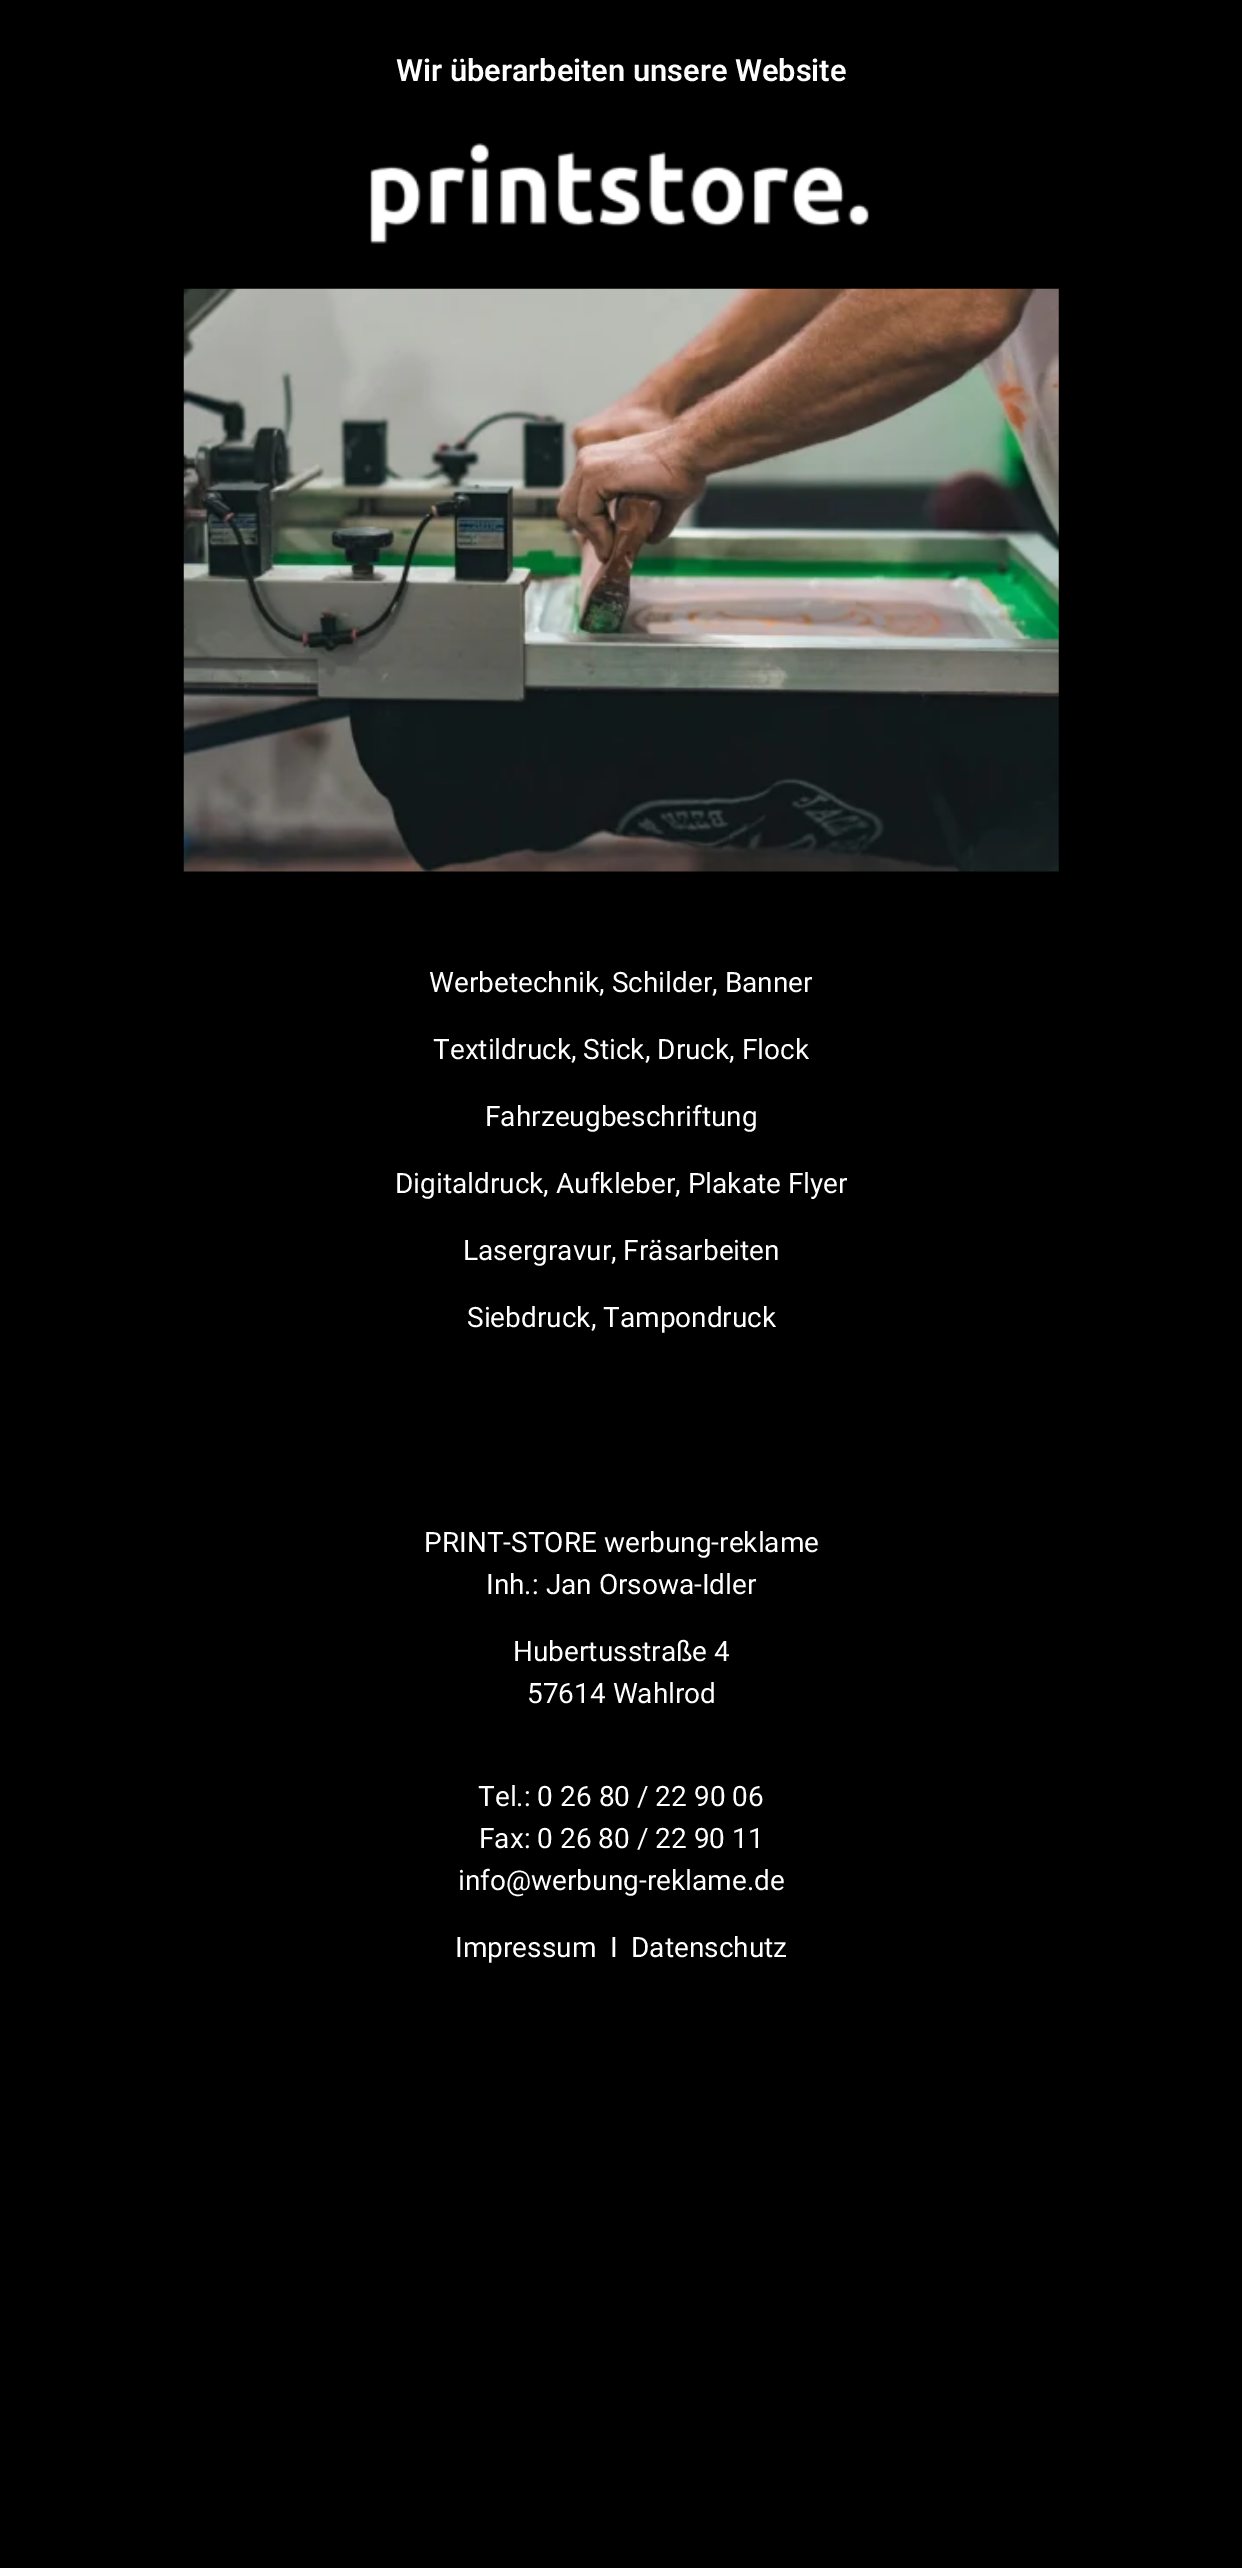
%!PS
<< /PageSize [1242 2568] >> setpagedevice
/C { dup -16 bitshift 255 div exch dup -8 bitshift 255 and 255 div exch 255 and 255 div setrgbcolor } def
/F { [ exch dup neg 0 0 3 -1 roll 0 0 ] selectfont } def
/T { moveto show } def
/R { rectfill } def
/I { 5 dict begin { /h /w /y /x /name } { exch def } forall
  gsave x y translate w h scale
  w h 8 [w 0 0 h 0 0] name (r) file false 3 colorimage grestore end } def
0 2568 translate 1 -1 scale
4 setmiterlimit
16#000000 C
0 0 1242 2568 R
/Roboto-SemiBold 30.75 F
16#FFFFFF C
(Wir überarbeiten unsere Website) 396 81 T
(1.rgb) 370 143 499 101 I
(2.rgb) 183 288 876 584 I
/Roboto-Regular 28 F
(Werbetechnik, Schilder, Banner) 429 992 T
(Textildruck, Stick, Druck, Flock) 433 1059 T
(Fahrzeugbeschriftung) 485 1126 T
(Digitaldruck, Aufkleber, Plakate Flyer) 395 1193 T
(Lasergravur, Fräsarbeiten) 463 1260 T
(Siebdruck, Tampondruck) 467 1327 T
(PRINT-STORE werbung-reklame) 424 1552 T
(Inh.: Jan Orsowa-Idler) 486 1594 T
(Hubertusstraße 4) 513 1661 T
(57614 Wahlrod) 527 1703 T
(Tel.: 0 26 80 / 22 90 06) 478 1806 T
(Fax: 0 26 80 / 22 90 11) 479 1848 T
(info@werbung-reklame.de) 458 1890 T
(Impressum) 455 1957 T
(I) 610 1957 T
(Datenschutz) 631 1957 T
showpage
